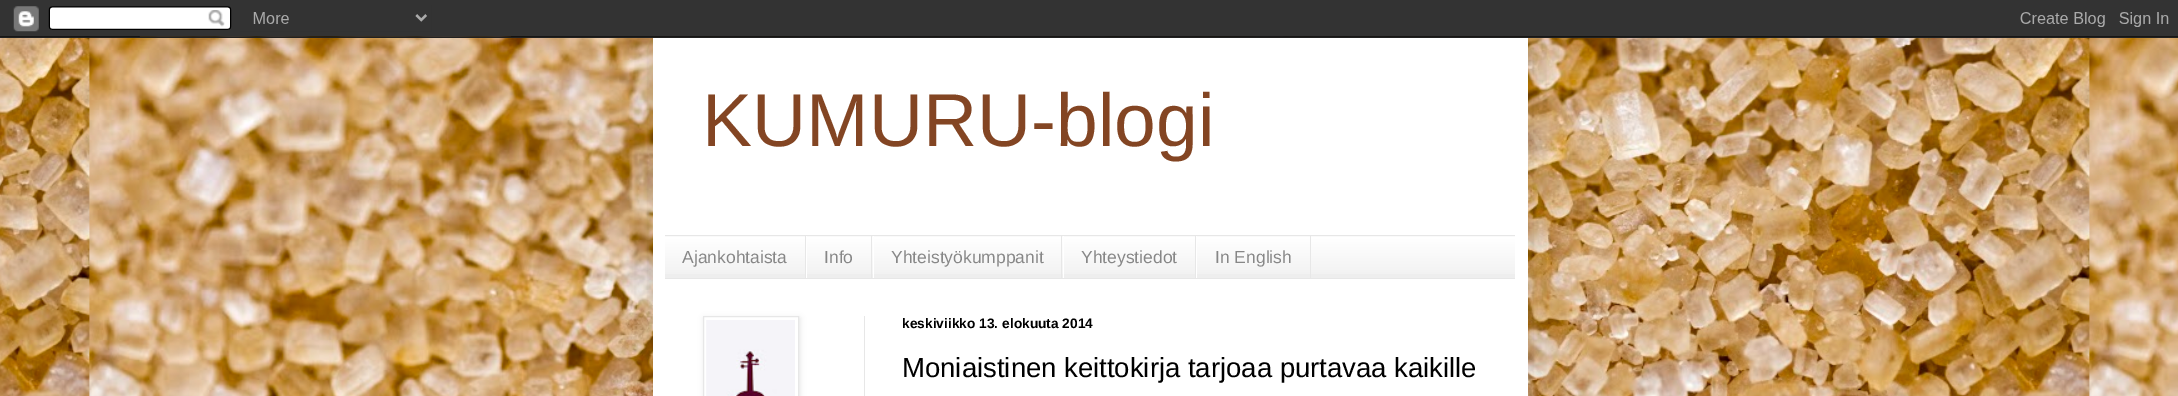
%!PS
<< /PageSize [2178 396] /PageUsesTransparency true >> setpagedevice
/m/moveto load def
/l/rlineto load def
/z/closepath load def
/f/fill load def
/s/stroke load def
/q/gsave load def
/Q_/grestore load def
/C { dup -16 bitshift 255 div exch dup -8 bitshift 255 and 255 div exch 255 and 255 div setrgbcolor } def
/F { [ exch dup neg 0 0 3 -1 roll 0 0 ] selectfont } def
/T { moveto show } def
/R { rectfill } def
/A { dup .setfillconstantalpha .setstrokeconstantalpha } def
/Q { 5 dict begin { /r /h /w /y /x } { exch def } forall
  x r add y moveto x w add y 2 copy h add r arct x w add y h add x 1 index r arct
  x y h add x y r arct x y 2 copy exch w add exch r arct closepath end } def
/S { 12 dict begin { /a /b /q /h /w /y /x } { exch def } forall gsave /was 0 def
  9 -2 -9 { dup b mul 4 div /e exch def 1 sub .425 mul 2.718 exch exp 1 add a .99 .min exch div /now exch def
    1 1 now sub 1 was sub div sub A /was now def
    w h .min e 2 mul add 0 gt { x e sub y e sub w e 2 mul add h e 2 mul add
      q e add b .6 mul add w h .min 2 div e add .min 0 .max Q fill } if } for grestore end } def
/I { 5 dict begin { /h /w /y /x /name } { exch def } forall
  gsave x y translate w h scale
  w h 8 [w 0 0 h 0 0] name (r) file false 3 colorimage grestore end } def
0 .pushpdf14devicefilter
0 396 translate 1 -1 scale
4 setmiterlimit
16#FFFFFF C
0 0 2178 396 R
(1.rgb) 0 36 2178 360 I
16#000000 C
653 38 875 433 0 25 .15 S
(2.rgb) 0 0 2178 38 I
16#FFFFFF C
653 38 875 358 R
/LiberationSans-Regular 75 F
16#834523 C
(KUMURU-blogi) 702 146 T
16#EEEEEE C
665 236 850 42 R
(3.rgb) 665 236 850 38 I
16#E7E7E7 C
665 235 850 1 R
665 278 850 1 R
805 236 1 42 R
/LiberationSans-Regular 17.5 F
16#878787 C
(Ajankohtaista) 682 263 T
16#E7E7E7 C
871 236 1 42 R
16#FFFFFF C
806 236 1 42 R
16#878787 C
(Info) 824 263 T
16#E7E7E7 C
1061 236 1 42 R
16#FFFFFF C
873 236 1 42 R
16#878787 C
(Yhteistyökumppanit) 891 263 T
16#E7E7E7 C
1195 236 1 42 R
16#FFFFFF C
1063 236 1 42 R
16#878787 C
(Yhteystiedot) 1081 263 T
16#E7E7E7 C
1310 236 1 42 R
16#FFFFFF C
1196 236 1 42 R
16#878787 C
(In English) 1215 263 T
16#E7E7E7 C
864 316 1 80 R
16#000000 C
704 318 96 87 0 3 .1 S
16#FFFFFF C
703.5 316.5 m 95 0 l 0 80 l -95 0 l z q f Q_
16#E7E7E7 C
s
(4.rgb) 706 320 89 76 I
/LiberationSans-Bold 13.75 F
16#000000 C
(keskiviikko 13. elokuuta 2014) 902 328 T
/LiberationSans-Regular 27.5 F
(Moniaistinen keittokirja tarjoaa purtavaa kaikille) 902 377 T
.poppdf14devicefilter showpage
